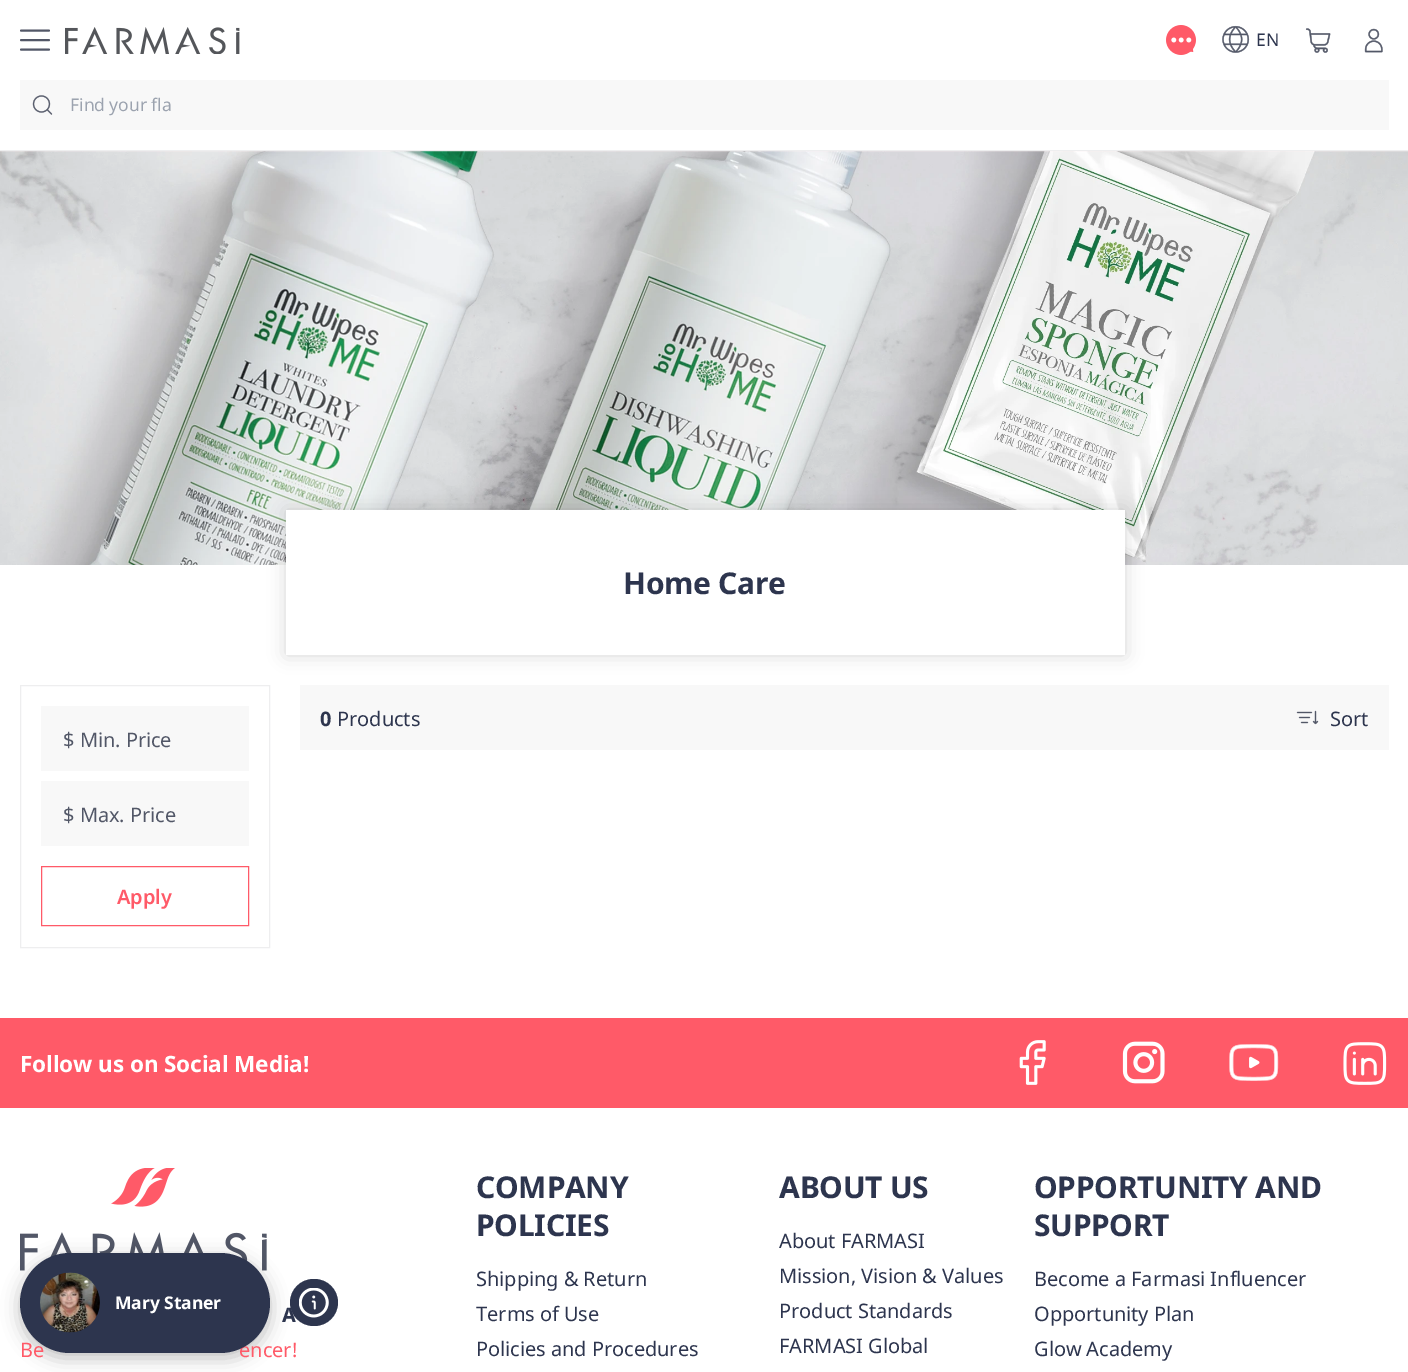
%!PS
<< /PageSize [1408 1372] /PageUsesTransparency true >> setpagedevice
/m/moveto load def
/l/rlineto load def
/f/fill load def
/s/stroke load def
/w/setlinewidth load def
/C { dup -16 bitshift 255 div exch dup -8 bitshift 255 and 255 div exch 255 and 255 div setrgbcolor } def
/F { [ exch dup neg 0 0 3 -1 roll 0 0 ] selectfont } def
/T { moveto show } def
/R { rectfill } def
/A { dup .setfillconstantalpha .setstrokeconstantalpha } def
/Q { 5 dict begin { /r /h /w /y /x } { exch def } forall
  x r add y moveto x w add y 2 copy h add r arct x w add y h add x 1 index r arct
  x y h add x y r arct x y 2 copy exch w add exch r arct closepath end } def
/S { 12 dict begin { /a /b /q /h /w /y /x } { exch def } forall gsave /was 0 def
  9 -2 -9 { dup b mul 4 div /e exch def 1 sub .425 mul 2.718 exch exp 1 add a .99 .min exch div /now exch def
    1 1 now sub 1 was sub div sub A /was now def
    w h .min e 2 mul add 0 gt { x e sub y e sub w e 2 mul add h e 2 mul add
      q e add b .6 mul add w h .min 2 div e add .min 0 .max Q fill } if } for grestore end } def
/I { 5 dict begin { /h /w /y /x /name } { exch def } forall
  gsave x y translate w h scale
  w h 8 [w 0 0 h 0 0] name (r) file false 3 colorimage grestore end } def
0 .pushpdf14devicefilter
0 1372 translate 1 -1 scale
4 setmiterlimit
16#FFFFFF C
0 0 1408 1372 R
16#EEEEEF C
0 150 1408 1 R
16#525767 C
1.9 w
1 setlinecap
21 30.5 m 28 0 l 21 40 m 28 0 l 21 49.5 m 28 0 l s
(1.rgb) 65 27 175 27 I
(2.rgb) 1166 25 30 30 I
(3.rgb) 1222 25 28 28 I
/NotoSans-Regular 17.5 F
16#2D354E C
1256 46 m -.05 0 (EN) ashow
(4.rgb) 1305 28 26 25 I
(5.rgb) 1364 28 19 25 I
16#F8F8F8 C
20 80 1369 50 R
(6.rgb) 32 95 21 20 I
16#9CA3AF C
70 111 m -.05 0 (Find your fla) ashow
(7.rgb) 0 151 1408 414 I
16#000000 C
286 510 839 145 0 9 .16 S
16#FFFFFF C
286 510 839 145 R
/NotoSans-Bold 30 F
16#2D354E C
623 594 m -.25 0 (Home Care) ashow
16#F8F8F8 C
300 685 1089 65 R
/NotoSans-Bold 20 F
16#2D354E C
320 726 m -.05 0 (0) ashow
/NotoSans-Regular 20 F
337 726 m -.05 0 (Products) ashow
(8.rgb) 1296 710 23 15 I
1330 726 m -.05 0 (Sort) ashow
16#EEEEEF C
1 w
0 setlinecap
20.5 685.5 249 262 rectstroke
16#F8F8F8 C
41 706 208 65 R
16#525767 C
63 747 m -.05 0 ($ Min. Price) ashow
16#F8F8F8 C
41 781 208 65 R
16#525767 C
63 822 m -.05 0 ($ Max. Price) ashow
16#FF5A68 C
41.5 866.5 207 59 rectstroke
/NotoSans-SemiBold 20 F
(Apply) 117 904 T
(15.rgb) 20 1168 247 103 I
16#000000 C
20 1258 250 100 50 9 .25 S
/NotoSans-Regular 20 F
16#FF5A68 C
20 1357 m -.05 0 (Be) ashow
239 1357 m -.05 0 (encer!) ashow
16#2D354E C
20 1253 250 100 50 Q f
(9.rgb) 40 1272 60 61 I
/NotoSans-Bold 17.5 F
16#FFFFFF C
115 1309 m -.05 0 (Mary Staner) ashow
16#2D354E C
290 1279 48 47 23.5 Q f
(10.rgb) 299 1288 30 30 I
16#FF5A68 C
0 1018 1408 90 R
/NotoSans-Bold 22.5 F
16#FFFFFF C
20 1072 m -.1 0 (Follow us on Social Media!) ashow
(11.rgb) 1019 1040 27 45 I
(12.rgb) 1122 1041 43 43 I
(13.rgb) 1229 1044 50 37 I
(14.rgb) 1343 1042 44 43 I
/NotoSans-Bold 20 F
16#2D354E C
282 1322 m -.05 0 (A) ashow
/NotoSans-Bold 30 F
476 1198 m -.25 0 (COMPANY) ashow
476 1236 m -.25 0 (POLICIES) ashow
/NotoSans-Regular 20 F
476 1286 m -.05 0 (Shipping & Return) ashow
476 1321 m -.05 0 (Terms of Use) ashow
476 1356 m -.05 0 (Policies and Procedures) ashow
/NotoSans-Bold 30 F
779 1198 m -.25 0 (ABOUT US) ashow
/NotoSans-Regular 20 F
779 1248 m -.05 0 (About FARMASI) ashow
779 1283 m -.05 0 (Mission, Vision & Values) ashow
779 1318 m -.05 0 (Product Standards) ashow
779 1353 m -.05 0 (FARMASI Global) ashow
/NotoSans-Bold 30 F
1034 1198 m -.25 0 (OPPORTUNITY AND) ashow
1034 1236 m -.25 0 (SUPPORT) ashow
/NotoSans-Regular 20 F
1034 1286 m -.05 0 (Become a Farmasi Influencer) ashow
1034 1321 m -.05 0 (Opportunity Plan) ashow
1034 1356 m -.05 0 (Glow Academy) ashow
.poppdf14devicefilter showpage
